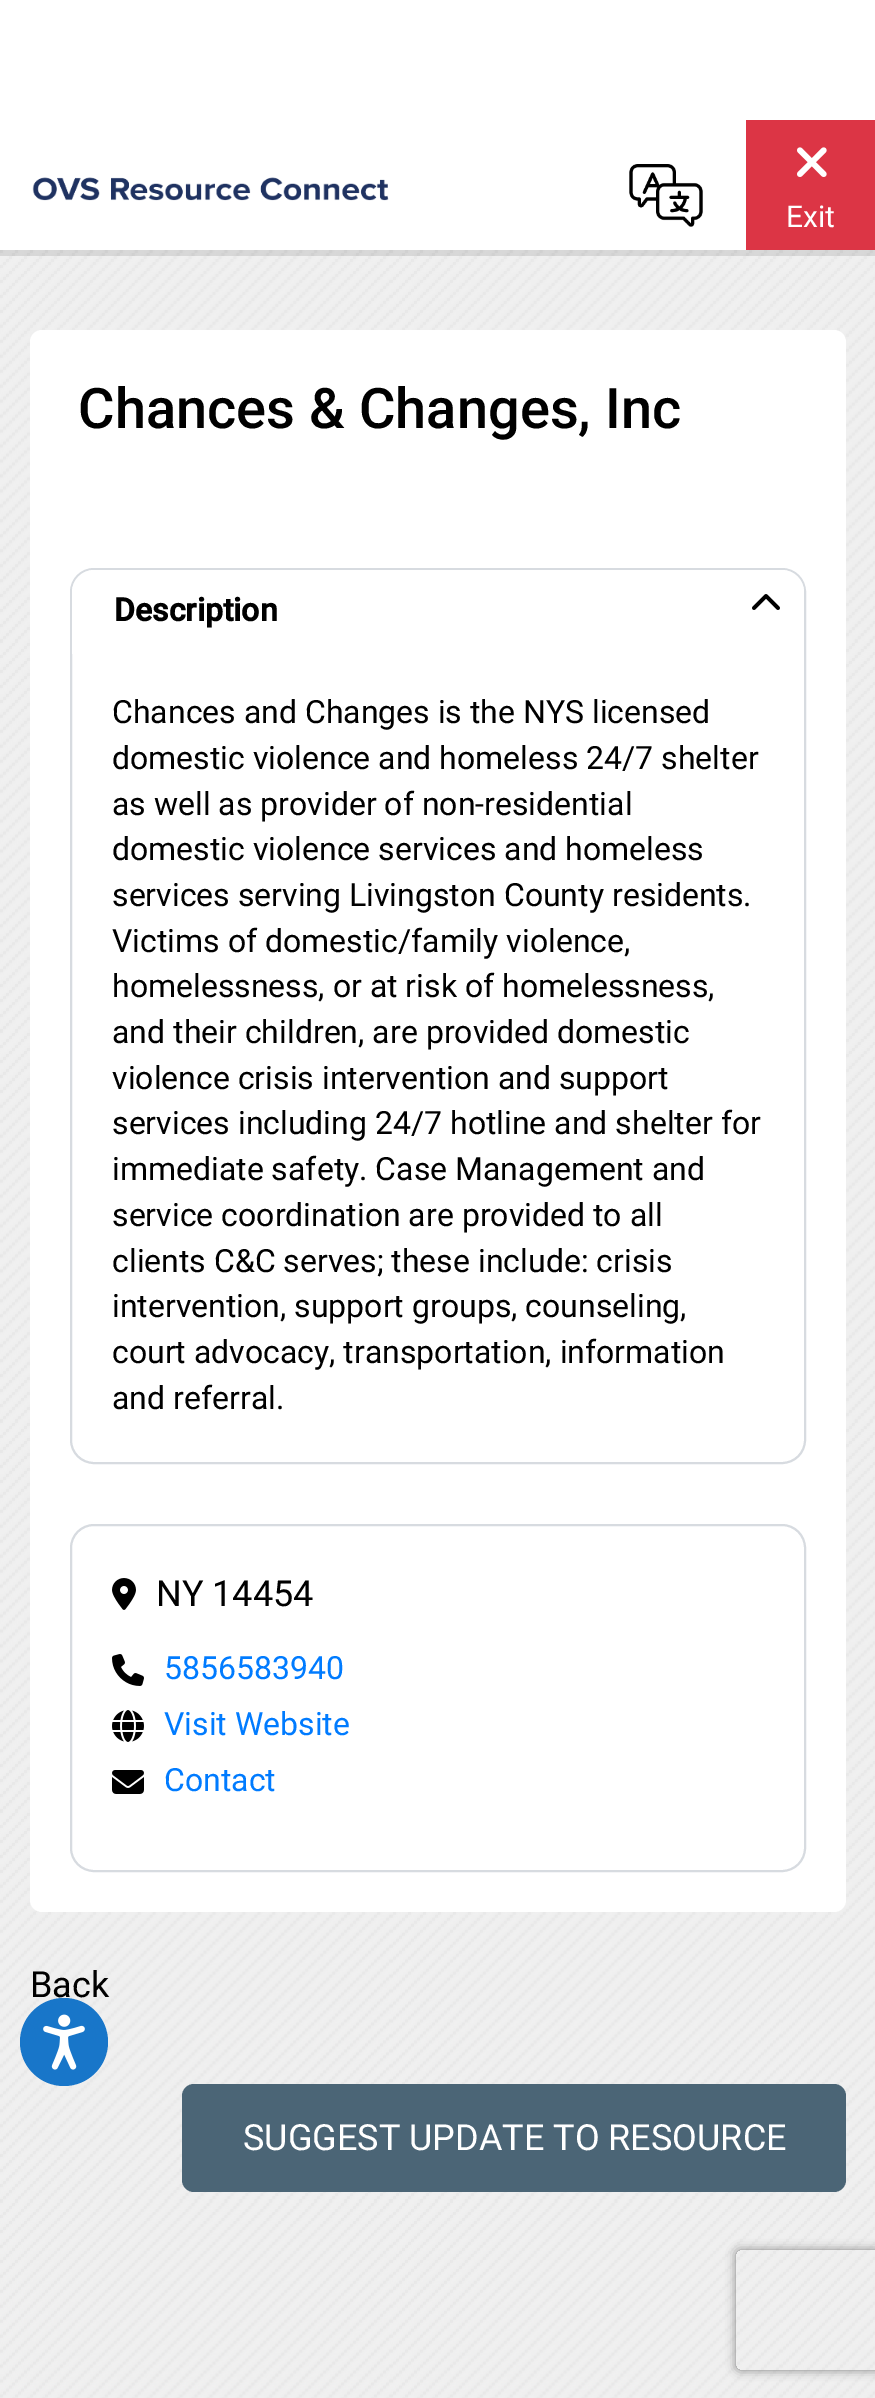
%!PS
<< /PageSize [875 2398] /PageUsesTransparency true >> setpagedevice
/m/moveto load def
/l/rlineto load def
/c/rcurveto load def
/z/closepath load def
/f/fill load def
/s/stroke load def
/q/gsave load def
/Q_/grestore load def
/w/setlinewidth load def
/C { dup -16 bitshift 255 div exch dup -8 bitshift 255 and 255 div exch 255 and 255 div setrgbcolor } def
/F { [ exch dup neg 0 0 3 -1 roll 0 0 ] selectfont } def
/T { moveto show } def
/R { rectfill } def
/A { dup .setfillconstantalpha .setstrokeconstantalpha } def
/O { newpath 0 360 arc closepath } def
/Q { 5 dict begin { /r /h /w /y /x } { exch def } forall
  x r add y moveto x w add y 2 copy h add r arct x w add y h add x 1 index r arct
  x y h add x y r arct x y 2 copy exch w add exch r arct closepath end } def
/S { 12 dict begin { /a /b /q /h /w /y /x } { exch def } forall gsave /was 0 def
  9 -2 -9 { dup b mul 4 div /e exch def 1 sub .425 mul 2.718 exch exp 1 add a .99 .min exch div /now exch def
    1 1 now sub 1 was sub div sub A /was now def
    w h .min e 2 mul add 0 gt { x e sub y e sub w e 2 mul add h e 2 mul add
      q e add b .6 mul add w h .min 2 div e add .min 0 .max Q fill } if } for grestore end } def
/I { 5 dict begin { /h /w /y /x /name } { exch def } forall
  gsave x y translate w h scale
  w h 8 [w 0 0 h 0 0] name (r) file false 3 colorimage grestore end } def
0 .pushpdf14devicefilter
0 2398 translate 1 -1 scale
4 setmiterlimit
16#FFFFFF C
0 0 875 2398 R
(4.rgb) 0 250 875 2148 I
0.1 A
16#000000 C
0 250 875 6 R
1 A
(1.rgb) 32 177 357 24 I
(2.rgb) 629 164 74 63 I
16#DC3545 C
746 120 129 130 R
(3.rgb) 797 147 30 30 I
/Roboto-Regular 30 F
16#FFFFFF C
(Exit) 786 227 T
30 330 816 1582 12 Q f
/Roboto-Medium 56 F
16#000000 C
(Chances & Changes, Inc) 78 428 T
16#D7DBE0 C
2 w
71 569 734 894 23 Q s
16#FFFFFF C
94 570 m 688 0 l 12 0 22 10 22 22 c 0 62 l -732 0 l 0 -62 l 0 -12 10 -22 22 -22 c z f
/Roboto-Bold 32 F
16#000000 C
(Description) 114 621 T
(5.rgb) 752 594 28 16 I
/Roboto-Regular 32 F
(Chances and Changes is the NYS licensed) 112 723 T
(domestic violence and homeless 24/7 shelter) 112 769 T
(as well as provider of non-residential) 112 815 T
(domestic violence services and homeless) 112 860 T
(services serving Livingston County residents.) 112 906 T
(Victims of domestic/family violence,) 112 952 T
(homelessness, or at risk of homelessness,) 112 997 T
(and their children, are provided domestic) 112 1043 T
(violence crisis intervention and support) 112 1089 T
(services including 24/7 hotline and shelter for) 112 1134 T
(immediate safety. Case Management and) 112 1180 T
(service coordination are provided to all) 112 1226 T
(clients C&C serves; these include: crisis) 112 1272 T
(intervention, support groups, counseling,) 112 1317 T
(court advocacy, transportation, information) 112 1363 T
(and referral.) 112 1409 T
16#D7DBE0 C
71 1525 734 346 23 Q s
(6.rgb) 112 1578 24 32 I
/Roboto-Regular 36 F
16#000000 C
(NY 14454) 156 1606 T
(7.rgb) 112 1654 32 32 I
/Roboto-Regular 32 F
16#007BFF C
(5856583940) 164 1679 T
(8.rgb) 112 1710 32 32 I
(Visit Website) 164 1735 T
(9.rgb) 112 1770 32 24 I
(Contact) 164 1791 T
/Roboto-Regular 36 F
16#000000 C
(Back) 30 1997 T
16#4B6576 C
182 2084 664 108 12 Q f
16#FFFFFF C
(SUGGEST UPDATE TO RESOURCE) 243 2150 T
16#1876C9 C
64 2042 44 O f
(10.rgb) 43 2014 42 56 I
q
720 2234 m 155 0 l 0 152 l -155 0 l z 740 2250 m 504 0 l 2 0 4 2 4 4 c 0 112 l 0 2 -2 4 -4 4 c -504 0 l -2 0 -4 -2 -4 -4 c 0 -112 l 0 -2 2 -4 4 -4 c z eoclip newpath
16#808080 C
736 2250 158 120 4 5 1 S
Q_
.poppdf14devicefilter showpage
